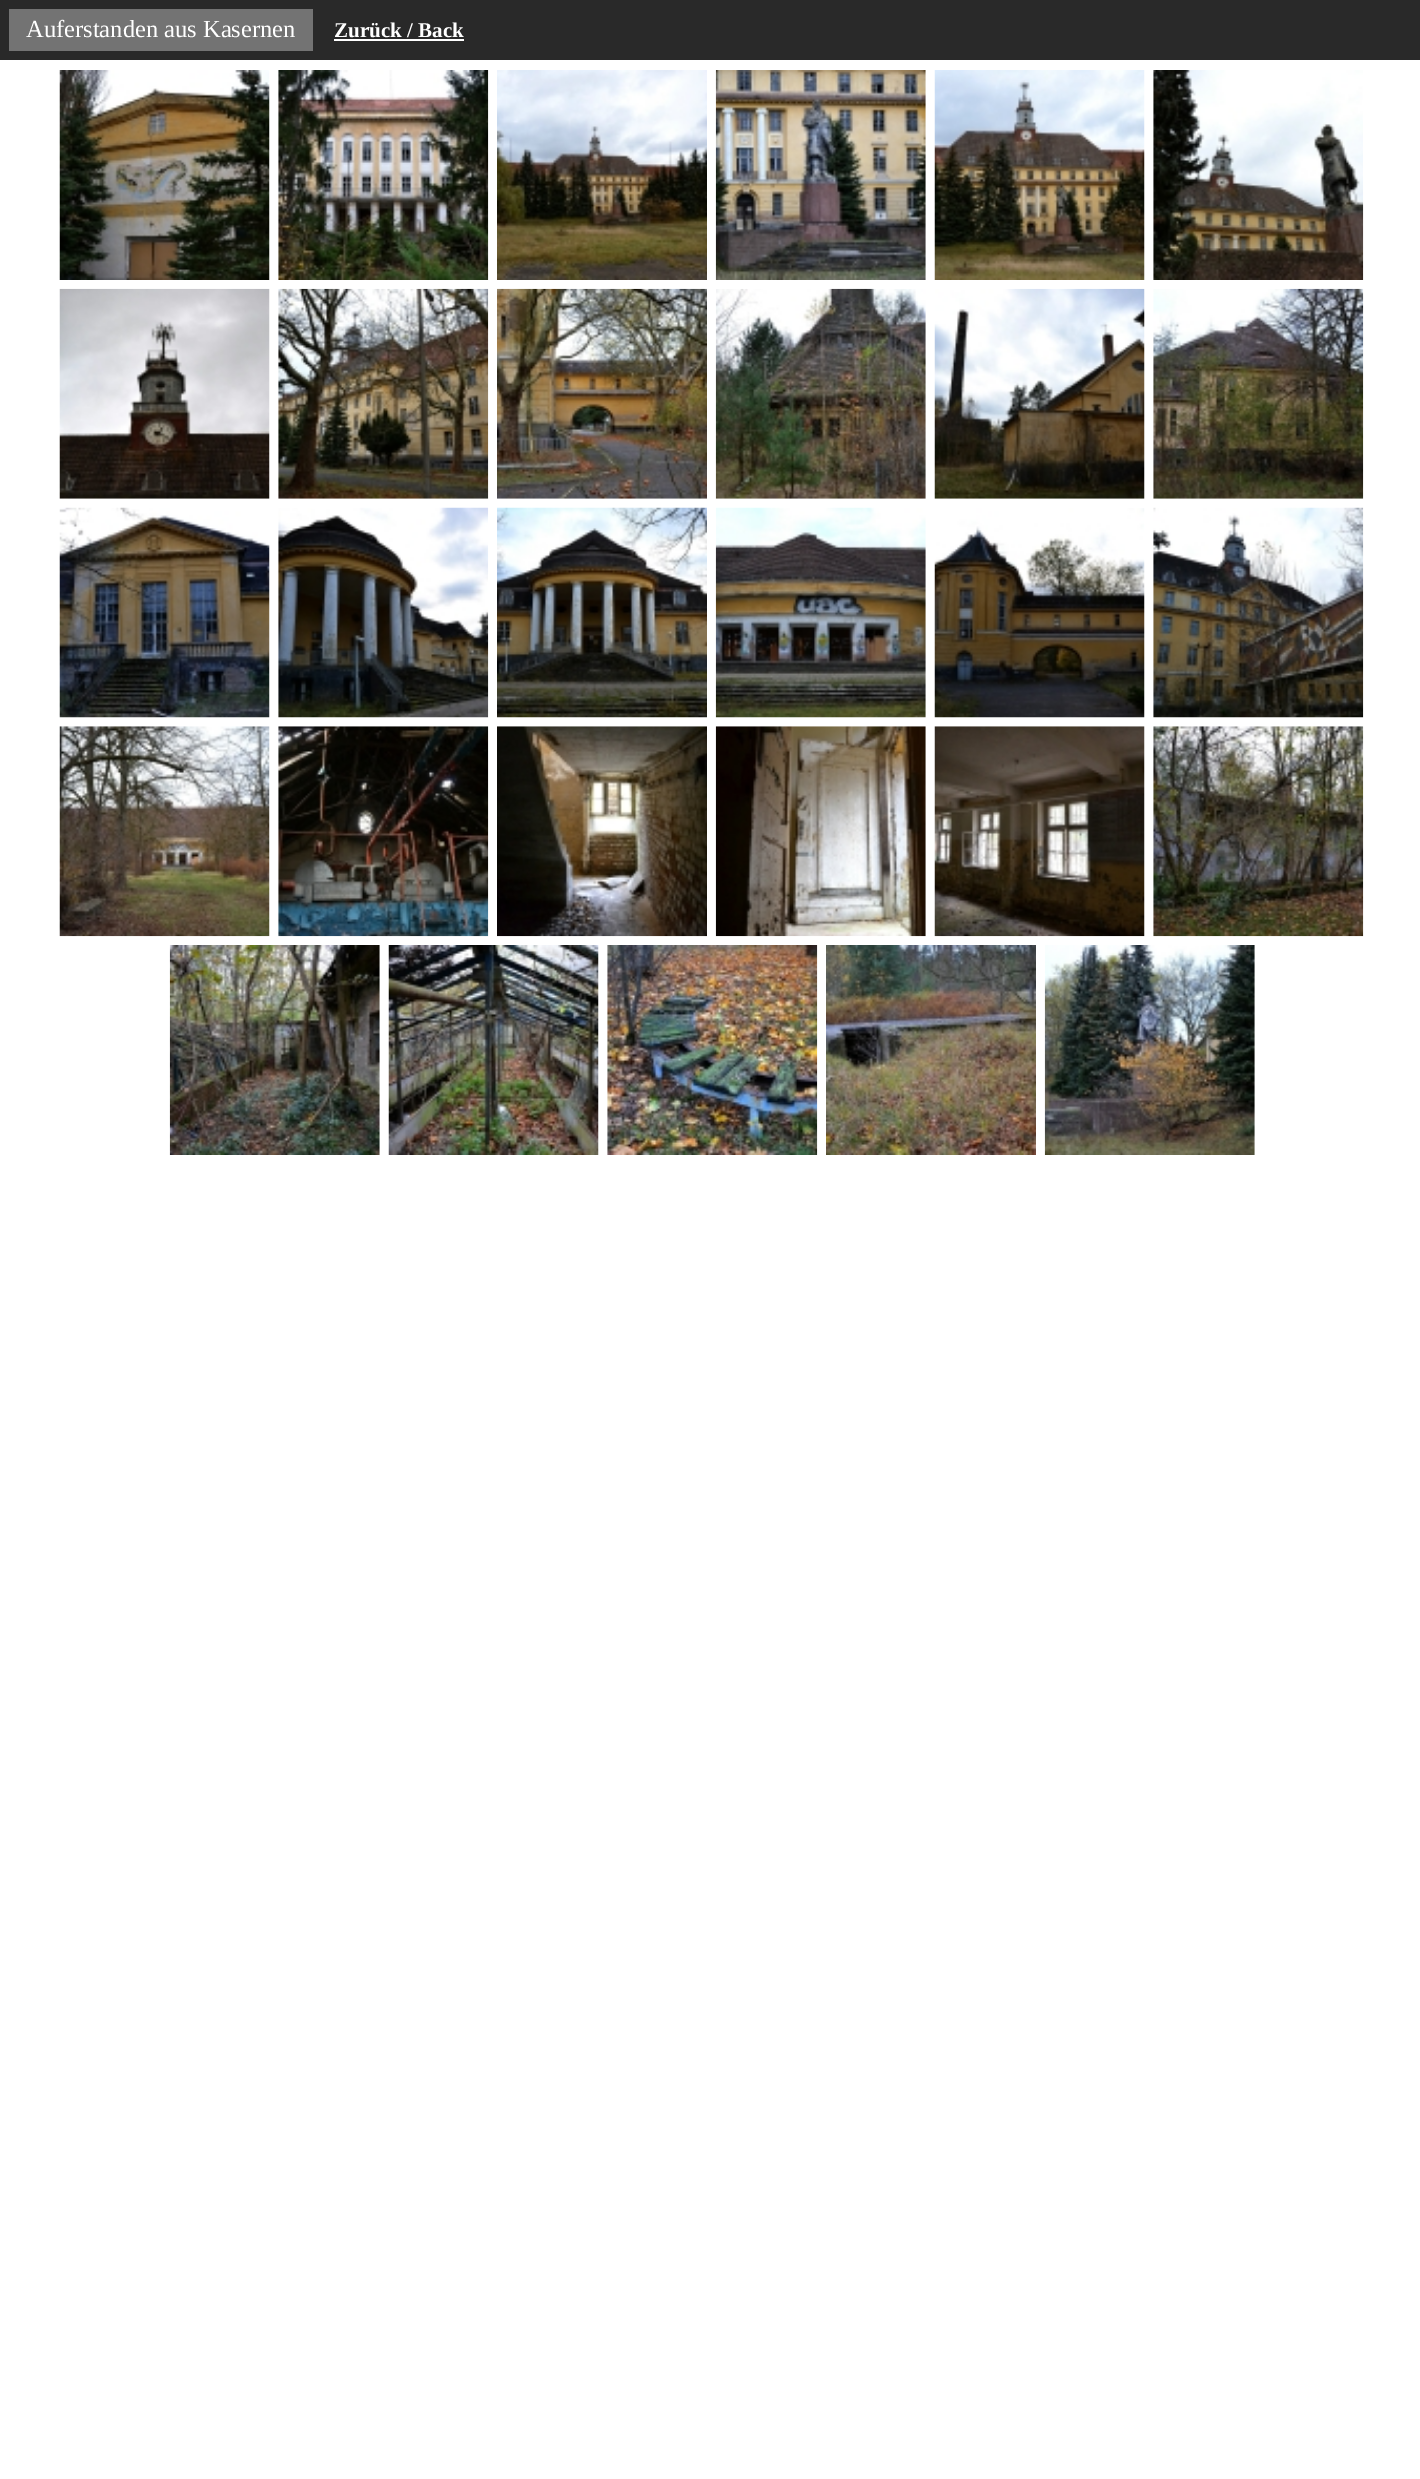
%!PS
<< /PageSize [1420 2479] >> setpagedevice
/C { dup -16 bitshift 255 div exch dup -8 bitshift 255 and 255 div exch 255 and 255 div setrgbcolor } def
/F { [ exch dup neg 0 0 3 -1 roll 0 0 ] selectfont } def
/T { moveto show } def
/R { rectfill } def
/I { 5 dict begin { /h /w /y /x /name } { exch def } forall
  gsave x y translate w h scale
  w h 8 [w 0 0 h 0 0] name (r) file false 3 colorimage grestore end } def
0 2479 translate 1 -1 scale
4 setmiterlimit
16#FFFFFF C
0 0 1420 2479 R
16#292929 C
0 0 1420 60 R
16#737373 C
9 9 304 42 R
/LiberationSerif-Regular 24.5 F
16#FFFFFF C
(Auferstanden aus Kasernen) 26 37 T
/LiberationSerif-Bold 21 F
(Zurück / Back) 334 37 T
334 39 130 2 R
(1.rgb) 59 70 211 210 I
(2.rgb) 278 70 211 210 I
(3.rgb) 497 70 210 210 I
(4.rgb) 715 70 211 210 I
(5.rgb) 934 70 211 210 I
(6.rgb) 1153 70 211 210 I
(7.rgb) 59 288 211 211 I
(8.rgb) 278 288 211 211 I
(9.rgb) 497 288 210 211 I
(10.rgb) 715 288 211 211 I
(11.rgb) 934 288 211 211 I
(12.rgb) 1153 288 211 211 I
(13.rgb) 59 507 211 211 I
(14.rgb) 278 507 211 211 I
(15.rgb) 497 507 210 211 I
(16.rgb) 715 507 211 211 I
(17.rgb) 934 508 211 210 I
(18.rgb) 1153 507 211 211 I
(19.rgb) 59 726 211 211 I
(20.rgb) 278 726 211 211 I
(21.rgb) 497 726 210 211 I
(22.rgb) 715 726 211 211 I
(23.rgb) 934 726 211 211 I
(24.rgb) 1153 726 211 211 I
(25.rgb) 169 945 211 210 I
(26.rgb) 388 945 211 210 I
(27.rgb) 607 945 211 210 I
(28.rgb) 826 945 210 210 I
(29.rgb) 1044 945 211 210 I
showpage
